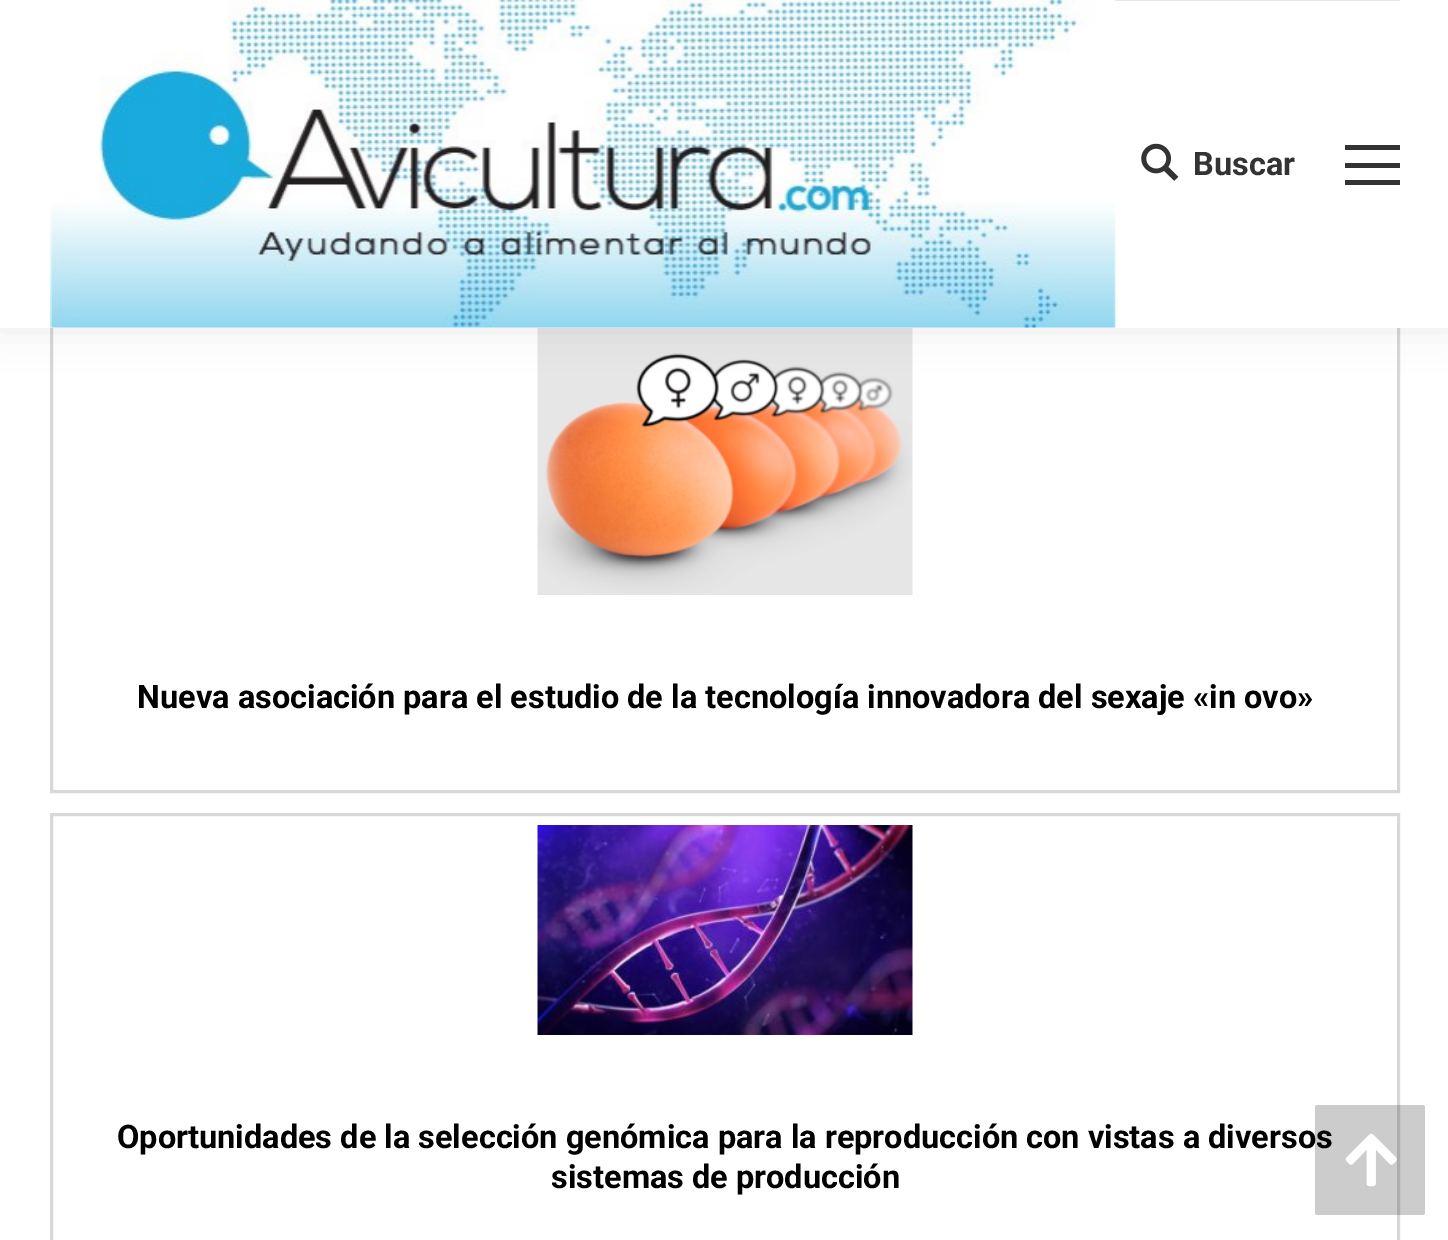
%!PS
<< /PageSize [1448 1240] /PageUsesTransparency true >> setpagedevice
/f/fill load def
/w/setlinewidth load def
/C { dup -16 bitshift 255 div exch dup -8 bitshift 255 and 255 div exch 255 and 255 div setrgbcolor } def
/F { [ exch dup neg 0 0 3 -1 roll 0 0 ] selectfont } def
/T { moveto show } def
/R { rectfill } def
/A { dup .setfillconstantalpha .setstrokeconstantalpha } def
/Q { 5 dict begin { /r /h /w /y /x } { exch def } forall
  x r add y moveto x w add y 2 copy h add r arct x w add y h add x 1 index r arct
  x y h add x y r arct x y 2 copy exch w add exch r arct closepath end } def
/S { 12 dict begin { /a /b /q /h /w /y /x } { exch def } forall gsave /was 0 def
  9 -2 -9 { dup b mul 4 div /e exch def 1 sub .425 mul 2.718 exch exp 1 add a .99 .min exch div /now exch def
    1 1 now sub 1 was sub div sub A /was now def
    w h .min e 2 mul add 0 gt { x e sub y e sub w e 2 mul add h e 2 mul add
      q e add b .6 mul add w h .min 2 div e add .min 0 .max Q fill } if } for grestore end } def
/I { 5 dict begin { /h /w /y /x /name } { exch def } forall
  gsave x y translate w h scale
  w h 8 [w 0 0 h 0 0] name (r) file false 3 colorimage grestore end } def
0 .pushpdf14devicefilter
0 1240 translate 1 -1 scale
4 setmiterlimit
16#FFFFFF C
0 0 1448 1240 R
16#D8D8D8 C
3 w
51.5 296.5 1347 495 rectstroke
(3.rgb) 537 328 376 267 I
16#000000 C
-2 -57 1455 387 0 19 .07 S
16#FFFFFF C
0 0 1448 328 R
16#E7E7E7 C
1113 0 287 1 R
(1.rgb) 50 0 1066 328 I
(2.rgb) 1141 143 38 38 I
/Roboto-Bold 32.5 F
16#333333 C
(Buscar) 1193 175 T
1345 163 55 5 R
1345 145 55 5 R
1345 180 55 5 R
16#000000 C
(Nueva asociación para el estudio de la tecnología innovadora del sexaje «in ovo») 137 708 T
16#D8D8D8 C
51.5 814.5 1347 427 rectstroke
(4.rgb) 537 825 376 210 I
16#000000 C
(Oportunidades de la selección genómica para la reproducción con vistas a diversos) 117 1148 T
(sistemas de producción) 551 1188 T
0.2 A
1315 1105 110 110 2.5 Q f
1 A
(5.rgb) 1345 1133 52 54 I
.poppdf14devicefilter showpage
